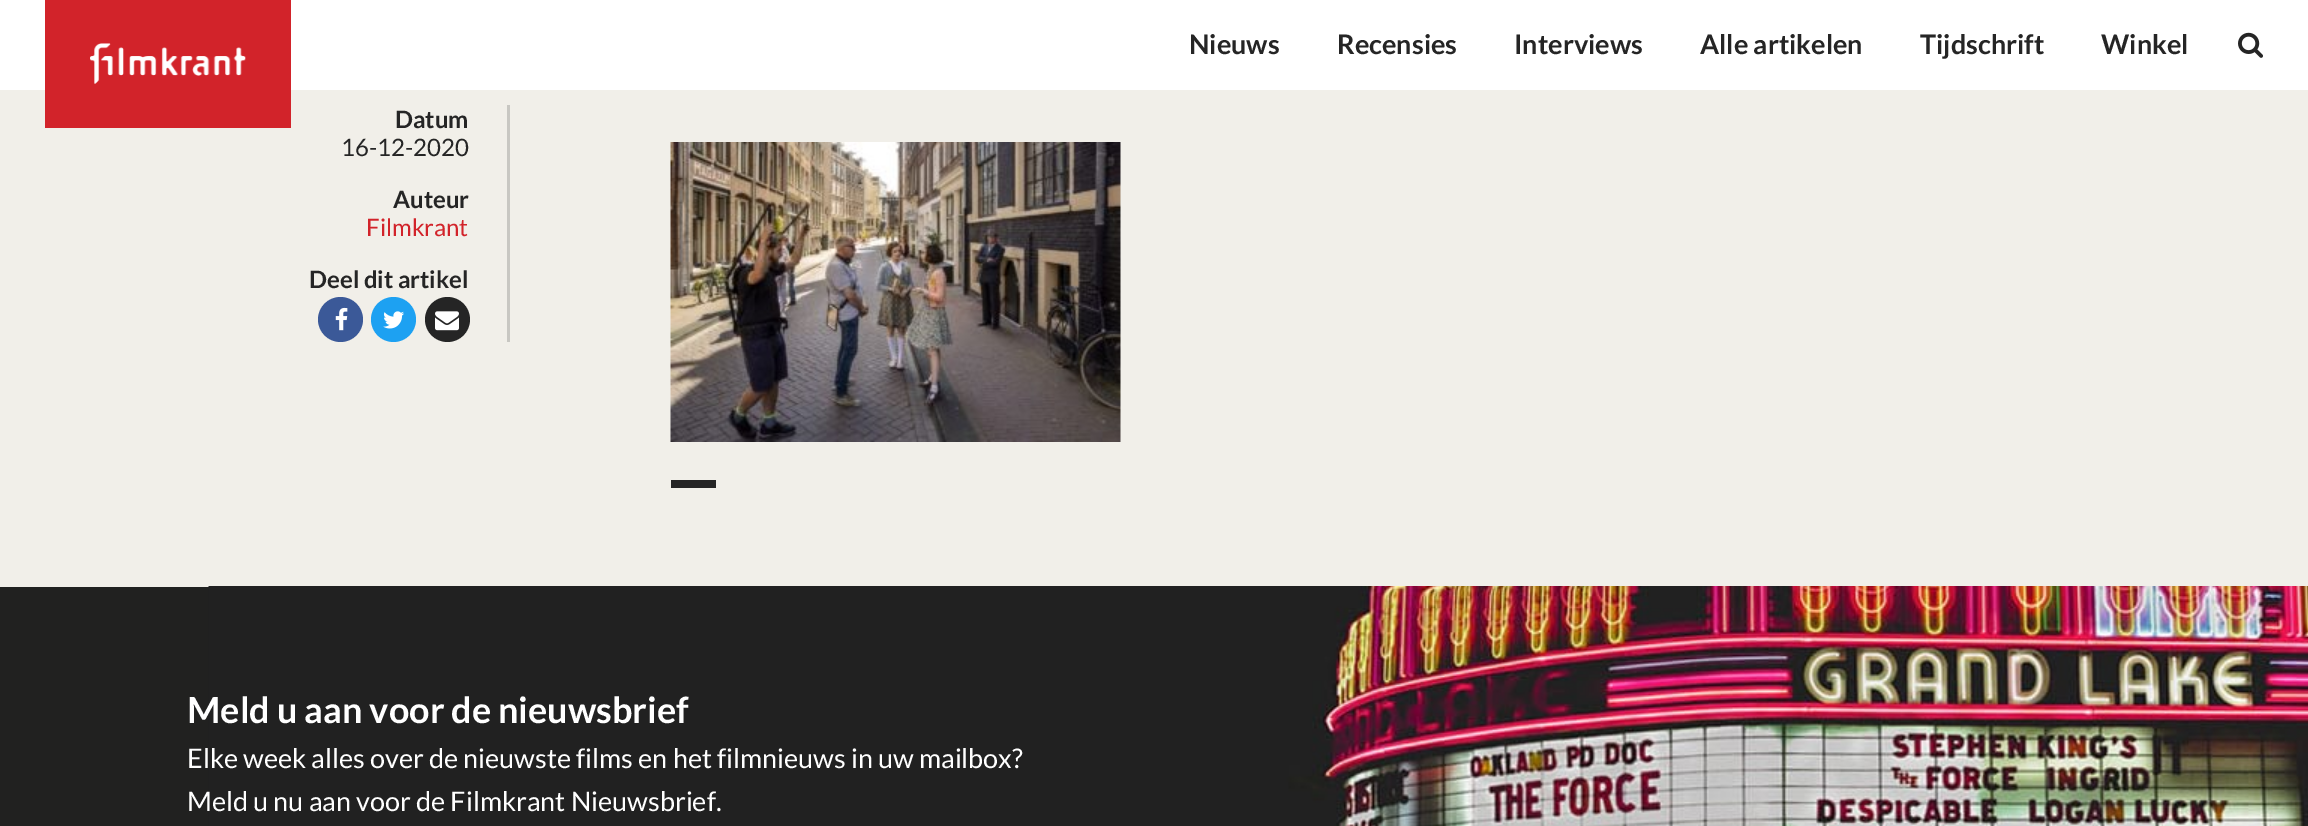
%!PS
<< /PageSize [2308 826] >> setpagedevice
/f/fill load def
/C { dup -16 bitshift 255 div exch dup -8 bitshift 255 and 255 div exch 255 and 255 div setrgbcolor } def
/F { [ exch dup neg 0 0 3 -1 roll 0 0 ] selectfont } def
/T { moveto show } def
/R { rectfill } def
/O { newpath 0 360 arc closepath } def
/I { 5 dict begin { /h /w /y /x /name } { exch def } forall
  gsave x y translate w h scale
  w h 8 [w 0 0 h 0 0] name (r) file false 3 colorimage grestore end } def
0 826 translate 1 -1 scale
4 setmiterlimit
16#F1EFE9 C
0 0 2308 826 R
16#FFFFFF C
0 0 2308 90 R
16#D2232A C
45 0 246 128 R
(1.rgb) 90 43 156 41 I
/Lato-Bold 27 F
16#252525 C
(Nieuws) 1189 54 T
(Recensies) 1337 54 T
(Interviews) 1514 54 T
(Alle artikelen) 1700 54 T
(Tijdschrift) 1920 54 T
(Winkel) 2101 54 T
(2.rgb) 2238 32 25 26 I
16#C8C7C2 C
507 105 3 237 R
/Lato-Bold 24 F
16#252525 C
(Datum) 395 128 T
/Lato-Regular 24 F
(16-12-2020) 341 156 T
/Lato-Bold 24 F
(Auteur) 393 208 T
/Lato-Regular 24 F
16#D2232A C
(Filmkrant) 366 236 T
/Lato-Bold 24 F
16#252525 C
(Deel dit artikel) 309 288 T
16#3B5998 C
340.5 319.5 22.5 O f
(3.rgb) 335 307 13 24 I
16#1DA1F2 C
393.5 319.5 22.5 O f
(4.rgb) 383 311 21 18 I
16#252525 C
447.5 319.5 22.5 O f
(5.rgb) 435 311 24 20 I
(6.rgb) 670 142 451 300 I
671 480 45 8 R
16#212120 C
0 587 209 239 R
(7.rgb) 208 586 2100 240 I
/Lato-Bold 36 F
16#FFFFFF C
(Meld u aan voor de nieuwsbrief) 187 723 T
/Lato-Regular 27 F
(Elke week alles over de nieuwste films en het filmnieuws in uw mailbox?) 187 768 T
(Meld u nu aan voor de Filmkrant Nieuwsbrief.) 187 811 T
showpage
